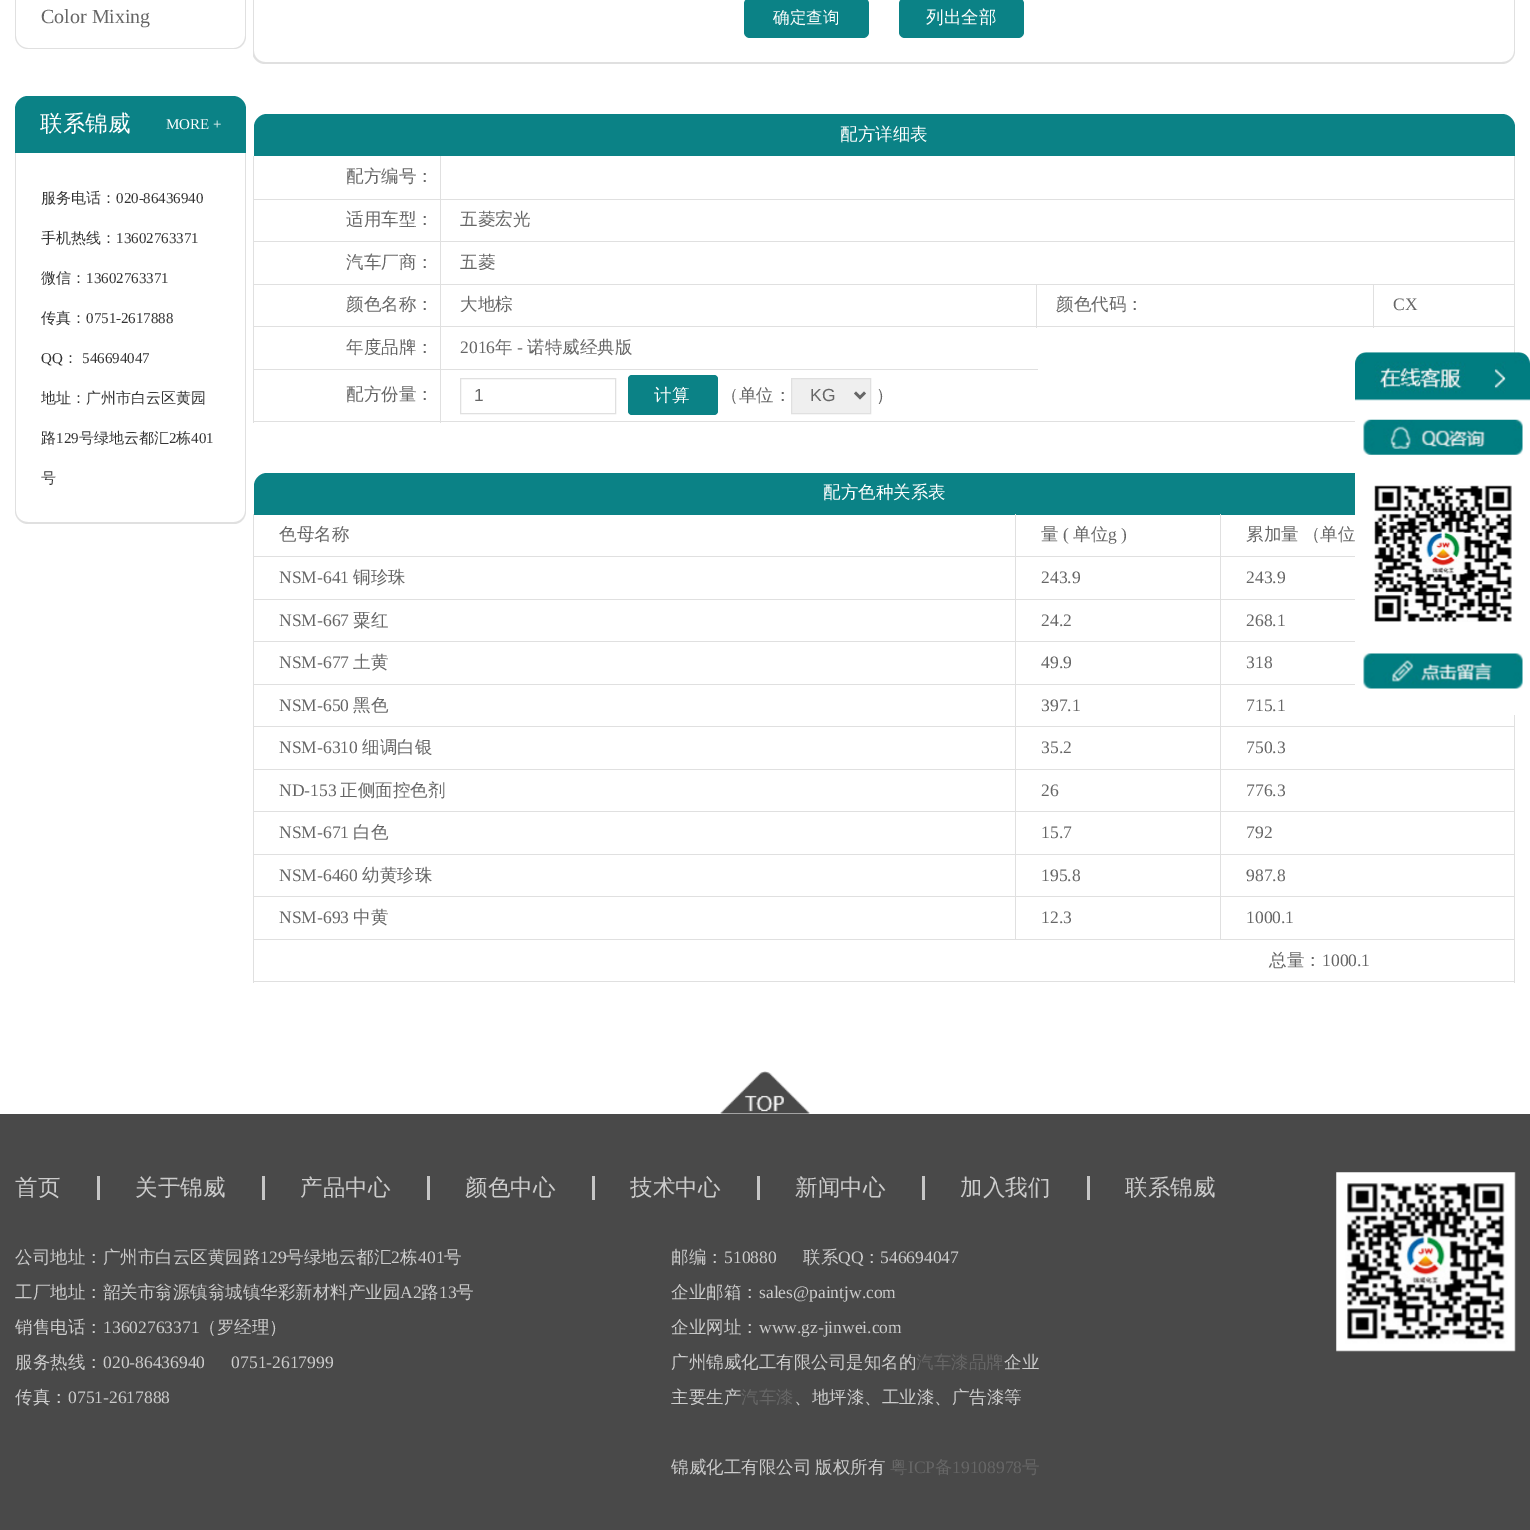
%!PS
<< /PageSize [1530 1530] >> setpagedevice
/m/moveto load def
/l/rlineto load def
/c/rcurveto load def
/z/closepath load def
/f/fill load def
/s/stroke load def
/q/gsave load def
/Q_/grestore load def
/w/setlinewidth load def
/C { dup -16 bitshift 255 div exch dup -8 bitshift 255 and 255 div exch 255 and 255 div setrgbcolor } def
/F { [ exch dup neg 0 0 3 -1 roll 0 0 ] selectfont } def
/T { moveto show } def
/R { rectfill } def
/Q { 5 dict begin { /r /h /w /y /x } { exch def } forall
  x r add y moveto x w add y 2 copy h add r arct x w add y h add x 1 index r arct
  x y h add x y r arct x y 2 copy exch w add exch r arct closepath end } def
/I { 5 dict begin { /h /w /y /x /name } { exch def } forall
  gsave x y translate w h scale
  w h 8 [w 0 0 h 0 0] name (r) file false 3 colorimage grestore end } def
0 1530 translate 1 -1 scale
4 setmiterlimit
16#FFFFFF C
0 0 1530 1530 R
16#E0E0E0 C
15 -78 m 231 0 l 0 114 l 0 7 -5 13 -12 13 c -206 0 l -7 0 -13 -6 -13 -13 c z 16 -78 m 229 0 l 0 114 l 0 6 -5 12 -11 12 c -206 0 l -7 0 -12 -6 -12 -12 c z eofill
/LiberationSerif-Regular 20 F
16#666666 C
(Color Mixing) 41 23 T
16#E0E0E0 C
15 152 m 231 0 l 0 359 l 0 7 -5 13 -12 13 c -206 0 l -7 0 -13 -6 -13 -13 c z 16 152 m 229 0 l 0 359 l 0 6 -5 11 -11 11 c -206 0 l -7 0 -12 -5 -12 -11 c z eofill
16#0B8286 C
28 96 m 205 0 l 7 0 13 6 13 13 c 0 44 l -231 0 l 0 -44 l 0 -7 6 -13 13 -13 c z f
/WenQuanYiZenHei-Medium 22.5 F
16#FFFFFF C
(联系锦威) 40 131 T
/LiberationSerif-Regular 15 F
(MORE +) 166 129 T
/WenQuanYiZenHei-Medium 15 F
16#333333 C
(服务电话：) 41 203 T
/LiberationSerif-Regular 15 F
(020-86436940) 116 203 T
/WenQuanYiZenHei-Medium 15 F
(手机热线：) 41 243 T
/LiberationSerif-Regular 15 F
(13602763371) 116 243 T
/WenQuanYiZenHei-Medium 15 F
(微信：) 41 283 T
/LiberationSerif-Regular 15 F
(13602763371) 86 283 T
/WenQuanYiZenHei-Medium 15 F
(传真：) 41 323 T
/LiberationSerif-Regular 15 F
(0751-2617888) 86 323 T
(QQ) 41 363 T
/WenQuanYiZenHei-Medium 15 F
(：) 63 363 T
/LiberationSerif-Regular 15 F
(546694047) 82 363 T
/WenQuanYiZenHei-Medium 15 F
(地址：广州市白云区黄园) 41 403 T
(路) 41 443 T
/LiberationSerif-Regular 15 F
(129) 56 443 T
/WenQuanYiZenHei-Medium 15 F
(号绿地云都汇) 79 443 T
/LiberationSerif-Regular 15 F
(2) 169 443 T
/WenQuanYiZenHei-Medium 15 F
(栋) 176 443 T
/LiberationSerif-Regular 15 F
(401) 191 443 T
/WenQuanYiZenHei-Medium 15 F
(号) 41 483 T
q
253 0 1262 64 rectclip
16#E0E0E0 C
252 -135 m 1263 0 l 0 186 l 0 7 -6 13 -13 13 c -1237 0 l -7 0 -13 -6 -13 -13 c z 254 -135 m 1260 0 l 0 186 l 0 6 -5 11 -12 11 c -1237 0 l -6 0 -11 -5 -11 -11 c z eofill
Q_
16#0B8286 C
744 -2 125 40 6 Q f
/WenQuanYiZenHei-Medium 16.5 F
16#FFFFFF C
(确定查询) 773 23 T
16#0B8286 C
899 -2 125 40 6 Q f
/WenQuanYiZenHei-Medium 17.5 F
16#FFFFFF C
(列出全部) 926 23 T
16#0B8286 C
267 114 m 1235 0 l 7 0 13 6 13 13 c 0 29 l -1261 0 l 0 -29 l 0 -7 6 -13 13 -13 c z f
16#FFFFFF C
(配方详细表) 840 140 T
16#E0E0E0 C
1514 156 1 197 R
1373 326 142 1 R
1373 284 1 44 R
1036 326 338 1 R
1036 284 1 44 R
440 421 915 1 R
440 369 1 54 R
440 369 598 1 R
440 326 1 44 R
440 326 598 1 R
440 284 1 44 R
440 284 1075 1 R
440 241 1 44 R
440 241 1075 1 R
440 199 1 44 R
440 199 1075 1 R
440 156 1 44 R
253 421 188 1 R
253 369 1 54 R
253 369 188 1 R
253 326 1 44 R
253 326 188 1 R
253 284 1 44 R
253 284 188 1 R
253 241 1 44 R
253 241 188 1 R
253 199 1 44 R
253 199 188 1 R
253 156 1 44 R
16#666666 C
(配方编号：) 346 182 T
(适用车型：) 346 225 T
(五菱宏光) 460 225 T
(汽车厂商：) 346 268 T
(五菱) 460 268 T
(颜色名称：) 346 310 T
(大地棕) 460 310 T
(颜色代码：) 1056 310 T
/LiberationSerif-Regular 17.5 F
(CX) 1393 310 T
/WenQuanYiZenHei-Medium 17.5 F
(年度品牌：) 346 353 T
/LiberationSerif-Regular 17.5 F
(2016) 460 353 T
/WenQuanYiZenHei-Medium 17.5 F
(年) 495 353 T
/LiberationSerif-Regular 17.5 F
(-) 517 353 T
/WenQuanYiZenHei-Medium 17.5 F
(诺特威经典版) 527 353 T
(配方份量：) 346 400 T
16#E0E0E0 C
460.5 378.5 155 35 rectstroke
/LiberationSans-Regular 17.5 F
16#666666 C
(1) 474 401 T
16#0B8286 C
628 375 90 40 4 Q f
/WenQuanYiZenHei-Medium 17.5 F
16#FFFFFF C
(计算) 654 401 T
16#666666 C
(（单位：) 721 401 T
16#EFEFEF C
791.5 378.5 m 79 0 l 0 35 l -79 0 l z q f Q_
16#E0E0E0 C
s
16#666666 C
2.5 w
855 392.5 m 5 5 l 5 -5 l s
/LiberationSans-Regular 17.5 F
(KG) 810 401 T
/WenQuanYiZenHei-Medium 17.5 F
(）) 876 401 T
16#0B8286 C
267 473 m 1235 0 l 7 0 13 6 13 13 c 0 29 l -1261 0 l 0 -29 l 0 -7 6 -13 13 -13 c z f
16#FFFFFF C
(配方色种关系表) 823 498 T
16#E0E0E0 C
1514 715 1 268 R
1220 939 295 1 R
1220 896 1 44 R
1220 896 295 1 R
1220 854 1 44 R
1220 854 295 1 R
1220 811 1 44 R
1220 811 295 1 R
1220 769 1 44 R
1220 769 295 1 R
1220 726 1 44 R
1220 726 295 1 R
1220 684 1 44 R
1220 684 135 1 R
1220 641 1 44 R
1220 641 135 1 R
1220 599 1 44 R
1220 599 135 1 R
1220 556 1 44 R
1220 556 135 1 R
1220 514 1 44 R
1015 939 206 1 R
1015 896 1 44 R
1015 896 206 1 R
1015 854 1 44 R
1015 854 206 1 R
1015 811 1 44 R
1015 811 206 1 R
1015 769 1 44 R
1015 769 206 1 R
1015 726 1 44 R
1015 726 206 1 R
1015 684 1 44 R
1015 684 206 1 R
1015 641 1 44 R
1015 641 206 1 R
1015 599 1 44 R
1015 599 206 1 R
1015 556 1 44 R
1015 556 206 1 R
1015 514 1 44 R
253 981 1262 1 R
253 939 1 44 R
253 939 763 1 R
253 896 1 44 R
253 896 763 1 R
253 854 1 44 R
253 854 763 1 R
253 811 1 44 R
253 811 763 1 R
253 769 1 44 R
253 769 763 1 R
253 726 1 44 R
253 726 763 1 R
253 684 1 44 R
253 684 763 1 R
253 641 1 44 R
253 641 763 1 R
253 599 1 44 R
253 599 763 1 R
253 556 1 44 R
253 556 763 1 R
253 514 1 44 R
16#666666 C
(色母名称) 279 540 T
(量) 1041 540 T
/LiberationSerif-Regular 17.5 F
(\() 1063 540 T
/WenQuanYiZenHei-Medium 17.5 F
(单位) 1073 540 T
/LiberationSerif-Regular 17.5 F
(g \)) 1108 540 T
/WenQuanYiZenHei-Medium 17.5 F
1246 540 m -1 0 32 (累加量 （单位) widthshow
/LiberationSerif-Regular 17.5 F
(NSM-641) 279 583 T
/WenQuanYiZenHei-Medium 17.5 F
(铜珍珠) 353 583 T
/LiberationSerif-Regular 17.5 F
(243.9) 1041 583 T
(243.9) 1246 583 T
(NSM-667) 279 626 T
/WenQuanYiZenHei-Medium 17.5 F
(粟红) 353 626 T
/LiberationSerif-Regular 17.5 F
(24.2) 1041 626 T
(268.1) 1246 626 T
(NSM-677) 279 668 T
/WenQuanYiZenHei-Medium 17.5 F
(土黄) 353 668 T
/LiberationSerif-Regular 17.5 F
(49.9) 1041 668 T
(318) 1246 668 T
(NSM-650) 279 711 T
/WenQuanYiZenHei-Medium 17.5 F
(黑色) 353 711 T
/LiberationSerif-Regular 17.5 F
(397.1) 1041 711 T
(715.1) 1246 711 T
(NSM-6310) 279 753 T
/WenQuanYiZenHei-Medium 17.5 F
(细调白银) 362 753 T
/LiberationSerif-Regular 17.5 F
(35.2) 1041 753 T
(750.3) 1246 753 T
(ND-153) 279 796 T
/WenQuanYiZenHei-Medium 17.5 F
(正侧面控色剂) 340 796 T
/LiberationSerif-Regular 17.5 F
(26) 1041 796 T
(776.3) 1246 796 T
(NSM-671) 279 838 T
/WenQuanYiZenHei-Medium 17.5 F
(白色) 353 838 T
/LiberationSerif-Regular 17.5 F
(15.7) 1041 838 T
(792) 1246 838 T
(NSM-6460) 279 881 T
/WenQuanYiZenHei-Medium 17.5 F
(幼黄珍珠) 362 881 T
/LiberationSerif-Regular 17.5 F
(195.8) 1041 881 T
(987.8) 1246 881 T
(NSM-693) 279 923 T
/WenQuanYiZenHei-Medium 17.5 F
(中黄) 353 923 T
/LiberationSerif-Regular 17.5 F
(12.3) 1041 923 T
(1000.1) 1246 923 T
/WenQuanYiZenHei-Medium 17.5 F
(总量：) 1269 966 T
/LiberationSerif-Regular 17.5 F
(1000.1) 1322 966 T
16#FFFFFF C
1355 353 175 362 11 Q f
(1.rgb) 1355 352 175 49 I
(2.rgb) 1363 419 160 36 I
(3.rgb) 1374 485 138 137 I
(4.rgb) 1363 653 160 36 I
16#494949 C
0 1114 1530 416 R
(5.rgb) 720 1071 90 43 I
/WenQuanYiZenHei-Medium 22.5 F
16#CCCCCC C
(首页) 15 1195 T
16#C5C5C5 C
97 1176 3 24 R
16#CCCCCC C
(关于锦威) 135 1195 T
16#C5C5C5 C
262 1176 3 24 R
16#CCCCCC C
(产品中心) 300 1195 T
16#C5C5C5 C
427 1176 3 24 R
16#CCCCCC C
(颜色中心) 465 1195 T
16#C5C5C5 C
592 1176 3 24 R
16#CCCCCC C
(技术中心) 630 1195 T
16#C5C5C5 C
757 1176 3 24 R
16#CCCCCC C
(新闻中心) 795 1195 T
16#C5C5C5 C
922 1176 3 24 R
16#CCCCCC C
(加入我们) 960 1195 T
16#C5C5C5 C
1087 1176 3 24 R
16#CCCCCC C
(联系锦威) 1125 1195 T
/WenQuanYiZenHei-Medium 17.5 F
(公司地址：广州市白云区黄园路) 15 1263 T
/LiberationSerif-Regular 17.5 F
(129) 260 1263 T
/WenQuanYiZenHei-Medium 17.5 F
(号绿地云都汇) 286 1263 T
/LiberationSerif-Regular 17.5 F
(2) 391 1263 T
/WenQuanYiZenHei-Medium 17.5 F
(栋) 400 1263 T
/LiberationSerif-Regular 17.5 F
(401) 418 1263 T
/WenQuanYiZenHei-Medium 17.5 F
(号) 444 1263 T
(工厂地址：韶关市翁源镇翁城镇华彩新材料产业园) 15 1298 T
/LiberationSerif-Regular 17.5 F
(A2) 400 1298 T
/WenQuanYiZenHei-Medium 17.5 F
(路) 421 1298 T
/LiberationSerif-Regular 17.5 F
(13) 439 1298 T
/WenQuanYiZenHei-Medium 17.5 F
(号) 456 1298 T
(销售电话：) 15 1333 T
/LiberationSerif-Regular 17.5 F
(13602763371) 103 1333 T
/WenQuanYiZenHei-Medium 17.5 F
(（罗经理）) 199 1333 T
(服务热线：) 15 1368 T
/LiberationSerif-Regular 17.5 F
(020-86436940      0751-2617999) 103 1368 T
/WenQuanYiZenHei-Medium 17.5 F
(传真：) 15 1403 T
/LiberationSerif-Regular 17.5 F
(0751-2617888) 68 1403 T
/WenQuanYiZenHei-Medium 17.5 F
(邮编：) 671 1263 T
/LiberationSerif-Regular 17.5 F
(510880) 724 1263 T
/WenQuanYiZenHei-Medium 17.5 F
(联系) 803 1263 T
/LiberationSerif-Regular 17.5 F
(QQ) 838 1263 T
/WenQuanYiZenHei-Medium 17.5 F
(：) 863 1263 T
/LiberationSerif-Regular 17.5 F
(546694047) 880 1263 T
/WenQuanYiZenHei-Medium 17.5 F
(企业邮箱：) 671 1298 T
/LiberationSerif-Regular 17.5 F
(sales@paintjw.com) 759 1298 T
/WenQuanYiZenHei-Medium 17.5 F
(企业网址：) 671 1333 T
/LiberationSerif-Regular 17.5 F
(www.gz-jinwei.com) 759 1333 T
/WenQuanYiZenHei-Medium 17.5 F
(广州锦威化工有限公司是知名的) 671 1368 T
16#666666 C
(汽车漆品牌) 916 1368 T
16#CCCCCC C
(企业) 1004 1368 T
(主要生产) 671 1403 T
16#666666 C
(汽车漆) 741 1403 T
16#CCCCCC C
(、地坪漆、工业漆、广告漆等) 794 1403 T
671 1473 m -1 0 32 (锦威化工有限公司 版权所有) widthshow
16#666666 C
(粤) 890 1473 T
/LiberationSerif-Regular 17.5 F
(ICP) 908 1473 T
/WenQuanYiZenHei-Medium 17.5 F
(备) 935 1473 T
/LiberationSerif-Regular 17.5 F
(19108978) 952 1473 T
/WenQuanYiZenHei-Medium 17.5 F
(号) 1022 1473 T
(6.rgb) 1336 1172 180 180 I
showpage
